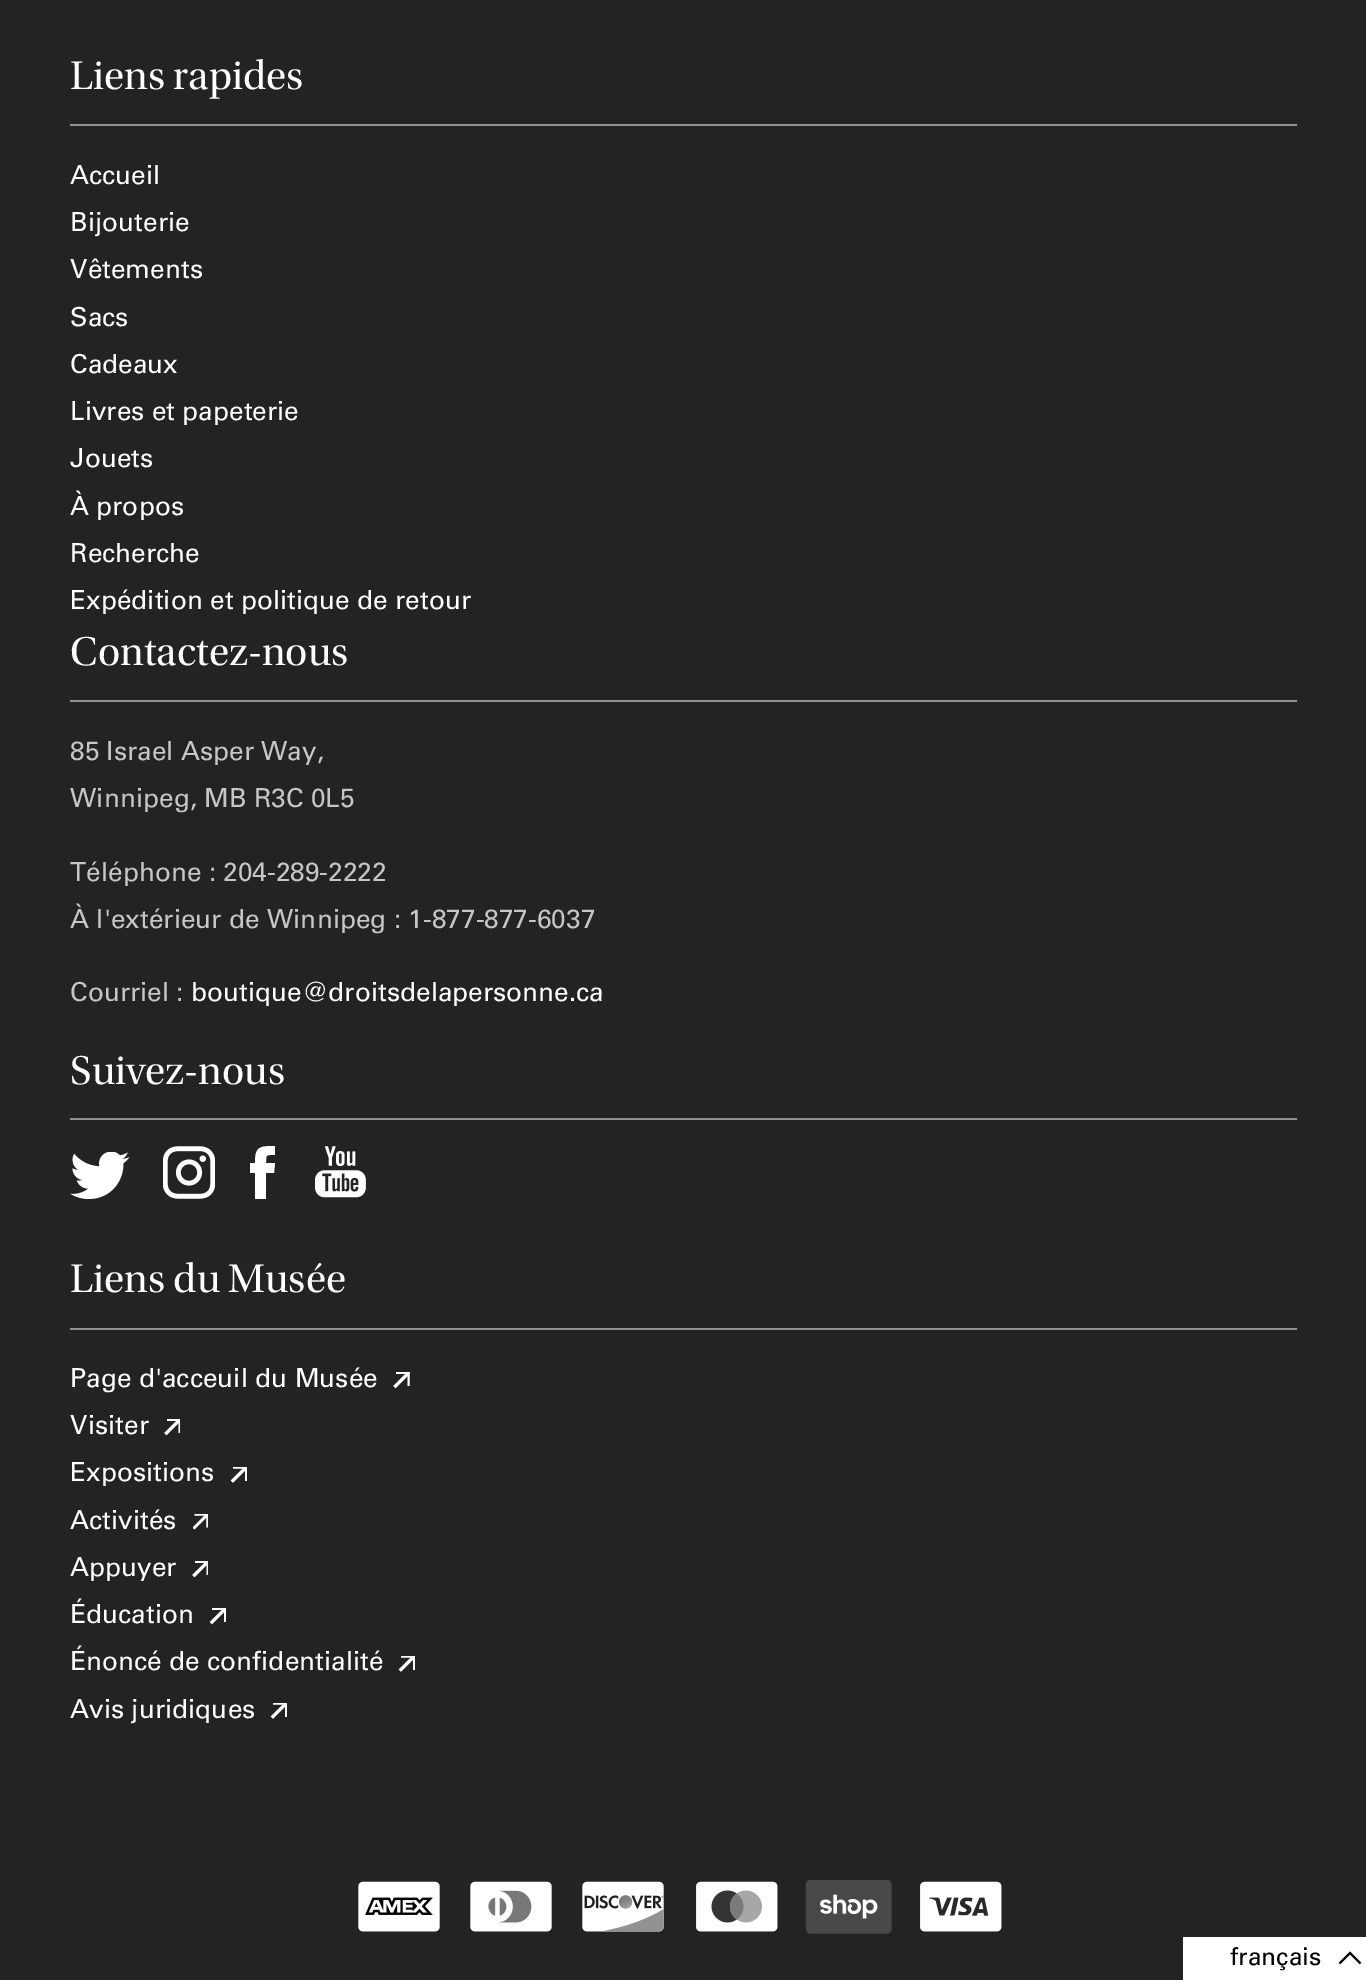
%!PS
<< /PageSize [1366 1980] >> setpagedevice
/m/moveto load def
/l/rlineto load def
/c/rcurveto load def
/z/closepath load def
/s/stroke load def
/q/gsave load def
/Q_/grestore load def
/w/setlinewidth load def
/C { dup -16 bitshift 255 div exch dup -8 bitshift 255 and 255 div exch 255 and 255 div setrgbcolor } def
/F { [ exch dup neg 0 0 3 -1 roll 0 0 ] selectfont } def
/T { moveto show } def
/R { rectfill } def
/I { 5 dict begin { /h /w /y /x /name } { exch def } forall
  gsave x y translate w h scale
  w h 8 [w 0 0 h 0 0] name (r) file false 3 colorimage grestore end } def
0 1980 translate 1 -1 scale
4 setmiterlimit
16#232323 C
0 0 1366 1980 R
/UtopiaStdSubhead-Regular 42 F
16#FFFFFF C
(Liens rapides) 70 89 T
16#919191 C
70 124 1227 2 R
/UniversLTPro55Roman-Regular 26.25 F
16#FFFFFF C
(Accueil) 70 184 T
(Bijouterie) 70 231 T
(Vêtements) 70 278 T
(Sacs) 70 326 T
(Cadeaux) 70 373 T
(Livres et papeterie) 70 420 T
(Jouets) 70 467 T
(À propos) 70 515 T
(Recherche) 70 562 T
(Expédition et politique de retour) 70 609 T
/UtopiaStdSubhead-Regular 42 F
(Contactez-nous) 70 665 T
16#919191 C
70 700 1227 2 R
/UniversLTPro55Roman-Regular 26.25 F
16#C6C6C6 C
(85 Israel Asper Way,) 70 760 T
(Winnipeg, MB R3C 0L5) 70 807 T
(Téléphone : 204-289-2222) 70 881 T
(À l'extérieur de Winnipeg : 1-877-877-6037) 70 928 T
(Courriel :) 70 1001 T
16#FFFFFF C
(boutique@droitsdelapersonne.ca) 191 1001 T
/UtopiaStdSubhead-Regular 42 F
(Suivez-nous) 70 1084 T
16#919191 C
70 1118 1227 2 R
(1.rgb) 70 1152 60 47 I
(2.rgb) 163 1146 52 53 I
16#FFFFFF C
275 1163 m -9 0 l 0 -9 0 -8 9 -8 c 0 -9 l -16 0 -20 1 -20 17 c -5 0 l 0 10 l 5 0 l 0 26 l 11 0 l 0 -26 l 8 0 l z eofill
(3.rgb) 315 1146 51 52 I
(Liens du Musée) 70 1292 T
16#919191 C
70 1328 1227 2 R
/UniversLTPro55Roman-Regular 26.25 F
16#FFFFFF C
(Page d'acceuil du Musée) 70 1387 T
396 1372 14 2 R
2 w
2 setlinecap
408.5 1385 m 0 -12 l s
3 w
395.5 1386 m 11 -11 l s
(Visiter) 70 1434 T
167 1419 13 2 R
q
165 1419 15 16 rectclip
2 w
179.5 1432 m 0 -12 l s
Q_
166.5 1433 m 11 -11 l s
(Expositions) 70 1481 T
q
231 1467 16 15 rectclip
2 w
234 1467.5 m 12 0 l s
Q_
245 1467 2 14 R
233 1480.5 m 11 -11 l s
(Activités) 70 1529 T
(4.rgb) 193 1514 15 16 I
(Appuyer) 70 1576 T
195 1561 13 2 R
q
193 1561 15 16 rectclip
2 w
207.5 1574 m 0 -12 l s
Q_
194.5 1575 m 11 -11 l s
(Éducation) 70 1623 T
212 1608 14 2 R
224 1608 2 14 R
212 1622 m 11 -11 l s
(Énoncé de confidentialité) 70 1670 T
q
399 1656 16 15 rectclip
2 w
402 1656.5 m 12 0 l s
Q_
413 1656 2 14 R
401 1669.5 m 11 -11 l s
(Avis juridiques) 70 1718 T
q
271 1703 16 16 rectclip
2 w
274 1703.5 m 12 0 l s
Q_
285 1703 2 14 R
273 1716.5 m 11 -11 l s
(5.rgb) 358 1881 82 51 I
(6.rgb) 470 1881 82 51 I
(7.rgb) 582 1881 82 51 I
(8.rgb) 696 1881 82 51 I
(9.rgb) 805 1880 87 54 I
(10.rgb) 920 1881 82 51 I
1183 1937 183 43 R
/UniversLTPro55Roman-Regular 24.5 F
16#000000 C
(français) 1230 1965 T
1.8 w
0 setlinecap
1360.5 1963.5 m -10.5 -10.5 l -10.5 10.5 l s
showpage
